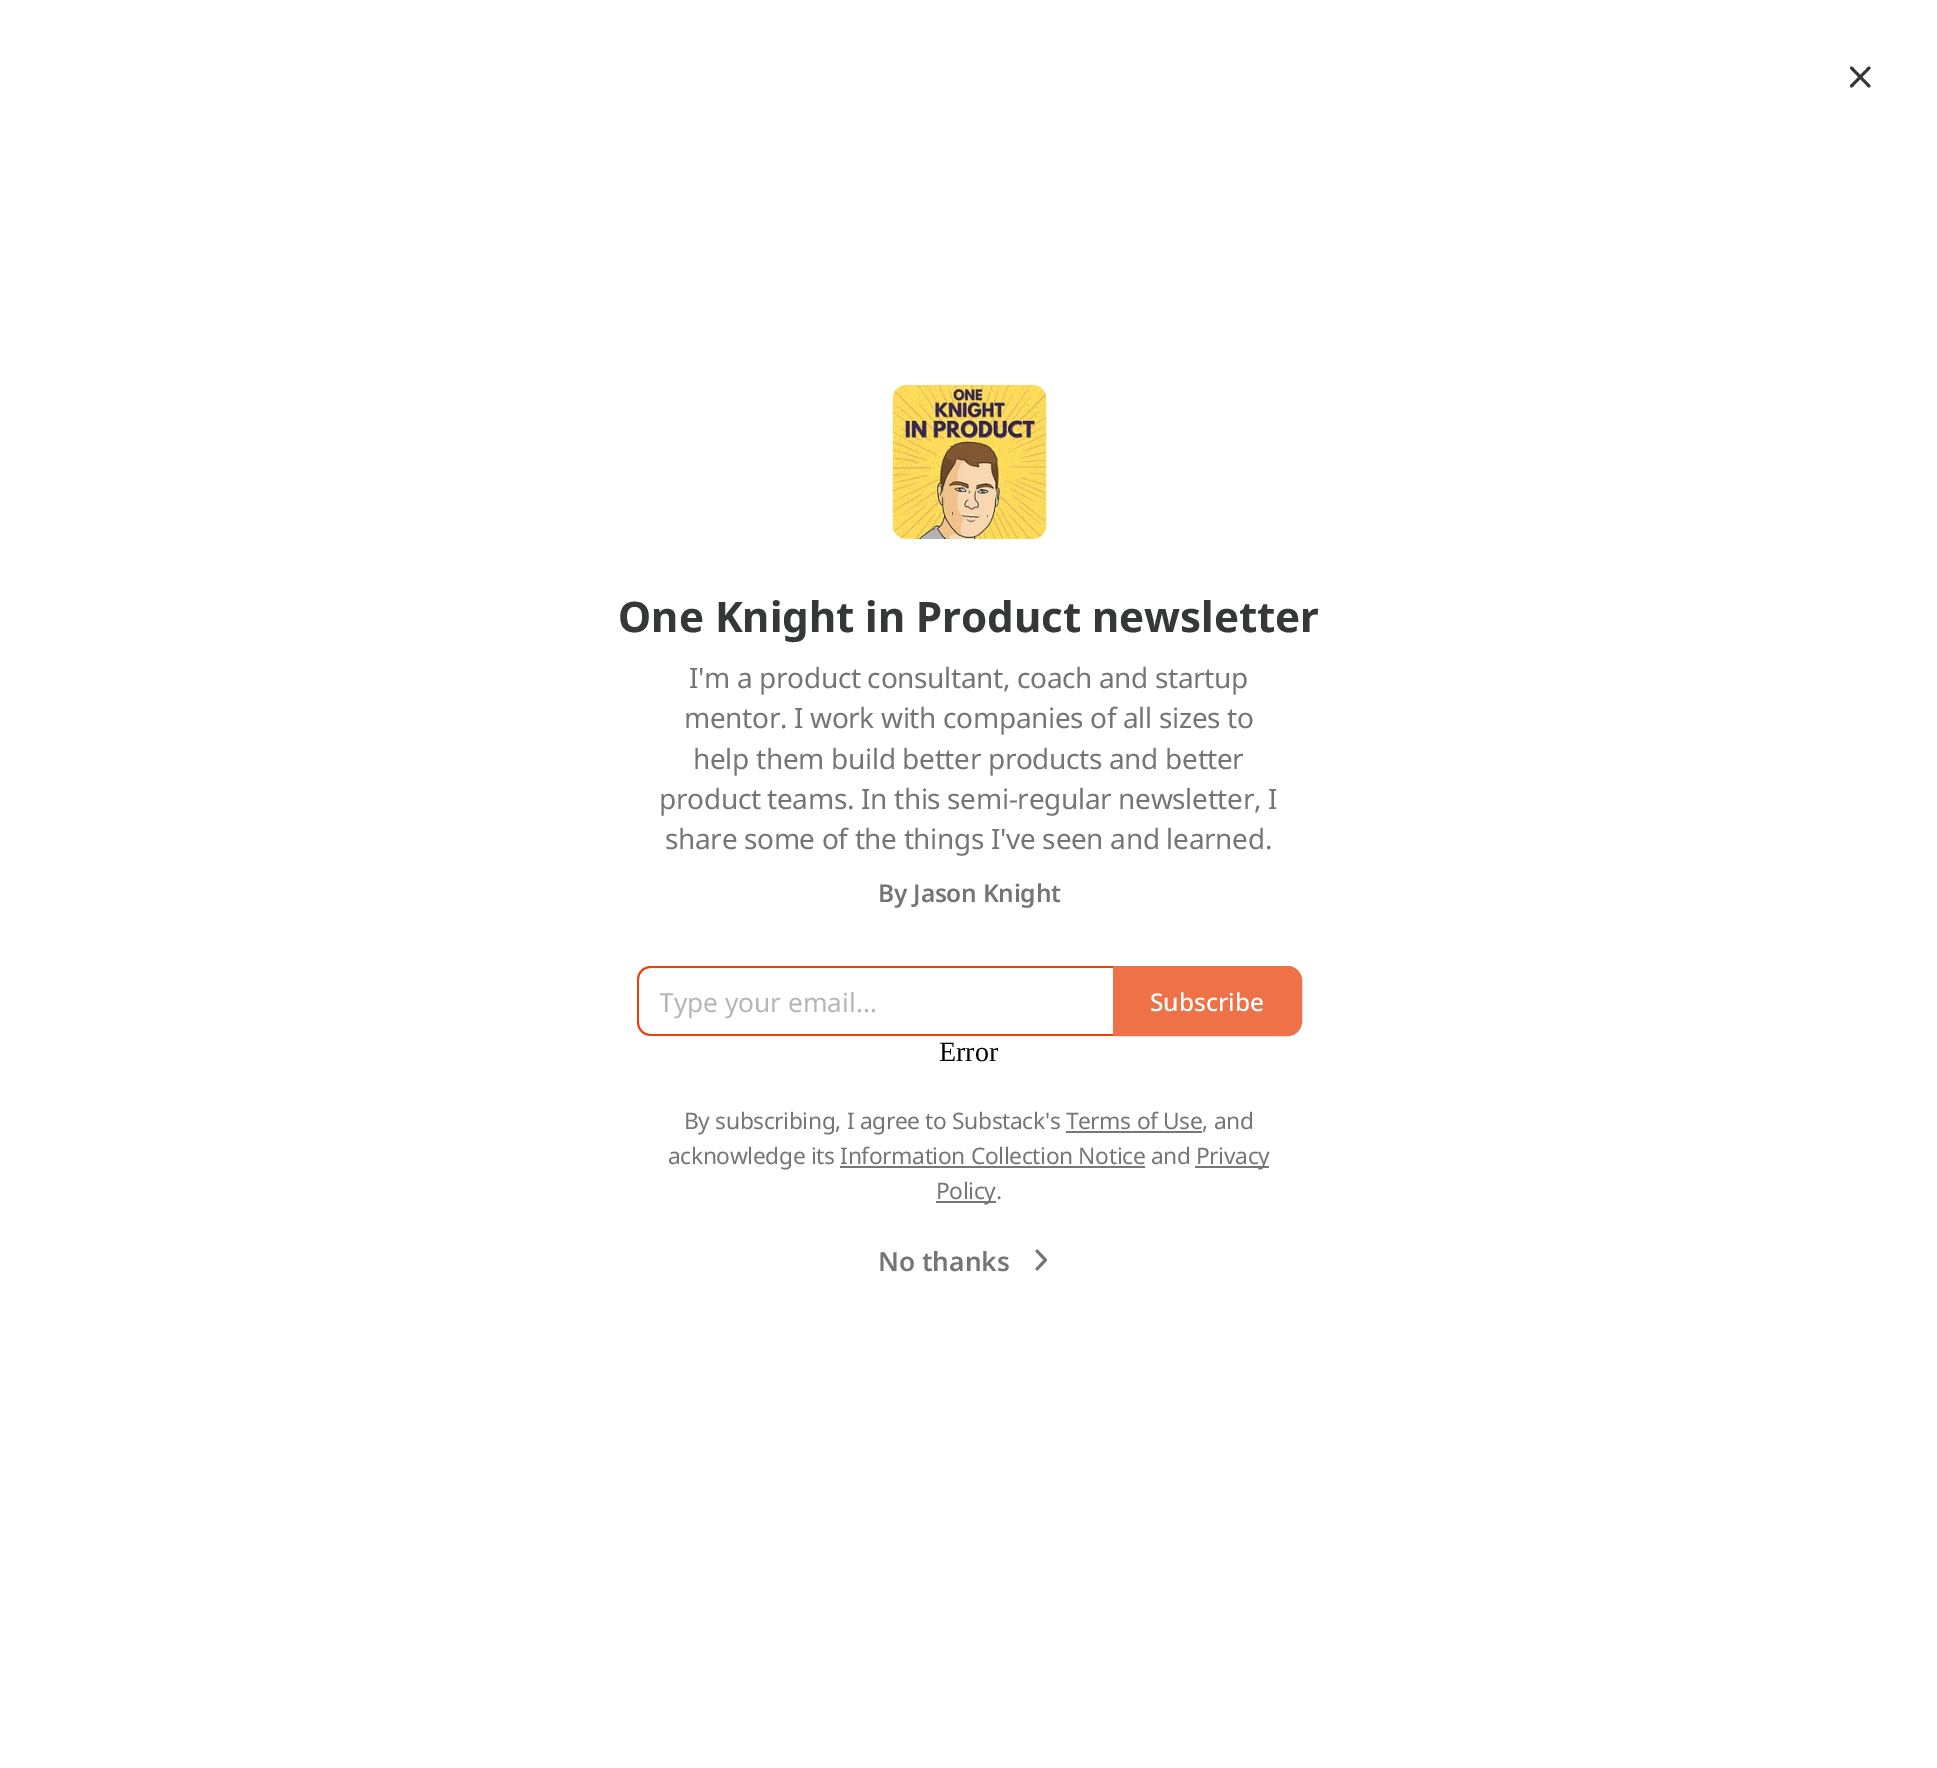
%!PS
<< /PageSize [1937 1768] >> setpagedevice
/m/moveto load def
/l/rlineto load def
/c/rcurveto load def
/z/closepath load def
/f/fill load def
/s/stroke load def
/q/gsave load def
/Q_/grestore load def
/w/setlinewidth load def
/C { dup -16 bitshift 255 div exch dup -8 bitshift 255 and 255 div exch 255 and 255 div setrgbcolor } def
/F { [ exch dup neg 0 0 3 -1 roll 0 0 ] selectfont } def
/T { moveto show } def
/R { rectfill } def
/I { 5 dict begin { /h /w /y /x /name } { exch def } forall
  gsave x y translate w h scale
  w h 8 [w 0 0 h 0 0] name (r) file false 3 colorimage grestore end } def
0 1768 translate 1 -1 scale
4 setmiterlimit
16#FFFFFF C
0 0 1937 1768 R
16#363737 C
2.9 w
1 setlinecap
1 setlinejoin
1869 68 m -17.5 18 l 1851.5 68 m 17.5 18 l s
(1.rgb) 892 385 155 154 I
/NotoSans-Bold 42 F
(One Knight in Product newsletter) 618 632 T
/NotoSans-Regular 28 F
16#757575 C
689 688 m -.35 0 (I'm a product consultant, coach and startup) ashow
684 728 m -.35 0 (mentor. I work with companies of all sizes to) ashow
693 769 m -.35 0 (help them build better products and better) ashow
659 809 m -.35 0 (product teams. In this semi-regular newsletter, I) ashow
665 849 m -.35 0 (share some of the things I've seen and learned.) ashow
/NotoSans-SemiBold 24.5 F
878 902 m -.25 0 (By Jason Knight) ashow
16#EA410B C
651 966 m 462 0 l 0 70 l -462 0 l -8 0 -14 -6 -14 -14 c 0 -42 l 0 -8 6 -14 14 -14 c z 651 968 m 462 0 l 0 66 l -462 0 l -7 0 -12 -5 -12 -12 c 0 -42 l 0 -7 5 -12 12 -12 c z eofill
q
660 984 432 35 rectclip
/NotoSans-Regular 26.25 F
16#B6B6B6 C
(Type your email...) 659 1012 T
Q_
16#EF7148 C
1114 967 m 174 0 l 7 0 13 6 13 13 c 0 42 l 0 7 -6 13 -13 13 c -174 0 l z q f Q_
2 w
0 setlinecap
0 setlinejoin
s
/NotoSans-Medium 24.5 F
16#FFFFFF C
(Subscribe) 1150 1011 T
/LiberationSerif-Regular 28 F
16#000000 C
(Error) 939 1061 T
/NotoSans-Regular 22.75 F
16#757575 C
684 1129 m -.35 0 (By subscribing, I agree to Substack's Terms of Use, and) ashow
16#777777 C
1066 1131 136 2 R
16#757575 C
668 1164 m -.35 0 (acknowledge its Information Collection Notice and) ashow
16#777777 C
1195 1166 74 2 R
16#757575 C
1196 1164 m -.35 0 (Privacy) ashow
16#777777 C
840 1166 305 2 R
936 1201 60 2 R
16#757575 C
936 1199 m -.35 0 (Policy.) ashow
/NotoSans-SemiBold 26.25 F
(No thanks) 878 1271 T
2.9 w
1 setlinecap
1 setlinejoin
1037 1269 m 8.5 -9 l -8.5 -9 l s
showpage
